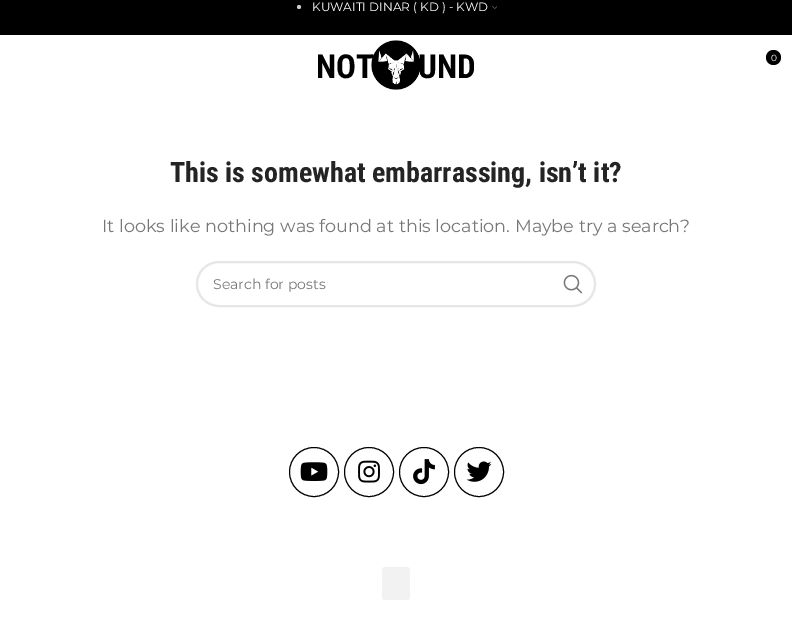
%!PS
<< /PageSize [792 618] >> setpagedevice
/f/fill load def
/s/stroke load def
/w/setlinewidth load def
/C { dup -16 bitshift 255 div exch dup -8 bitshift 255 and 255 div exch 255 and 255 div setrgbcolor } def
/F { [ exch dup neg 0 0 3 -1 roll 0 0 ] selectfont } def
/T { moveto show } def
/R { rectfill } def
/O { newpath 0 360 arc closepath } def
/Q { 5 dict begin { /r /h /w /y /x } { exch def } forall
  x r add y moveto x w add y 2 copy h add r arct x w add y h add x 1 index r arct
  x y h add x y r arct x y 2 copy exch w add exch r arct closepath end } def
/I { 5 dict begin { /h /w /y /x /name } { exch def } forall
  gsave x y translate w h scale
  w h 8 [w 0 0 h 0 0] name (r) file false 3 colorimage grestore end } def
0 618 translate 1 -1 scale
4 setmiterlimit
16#FFFFFF C
0 0 792 618 R
16#000000 C
0 0 792 35 R
16#CCCCCC C
299 7 2 O f
/Montserrat-Regular 12 F
16#FFFFFF C
(KUWAITI DINAR \( KD \) - KWD) 312 11 T
(1.rgb) 492 6 5 3 I
/RobotoCondensed-Bold 33 F
16#000000 C
(NOT) 316 78 T
(UND) 418 78 T
(2.rgb) 371 40 49 50 I
773.5 57.5 7.5 O f
/Montserrat-Regular 9 F
16#FFFFFF C
(0) 771 61 T
/RobotoCondensed-Bold 28 F
16#242424 C
(This is somewhat embarrassing, isn’t it?) 170 182 T
/Montserrat-Regular 17.6 F
16#777777 C
(It looks like nothing was found at this location. Maybe try a search?) 102 232 T
16#E6E6E6 C
2 w
197 262 398 44 22 Q s
/Montserrat-Regular 14 F
16#777777 C
(Search for posts) 213 289 T
(3.rgb) 563 274 20 20 I
16#000000 C
1 w
314 472 24.5 O s
(4.rgb) 300 462 28 19 I
369 472 24.5 O s
(5.rgb) 358 460 22 23 I
424 472 24.5 O s
(6.rgb) 413 459 22 26 I
479 472 24.5 O s
(7.rgb) 466 461 26 21 I
16#F2F2F2 C
382 567 28 33 3 Q f
showpage
